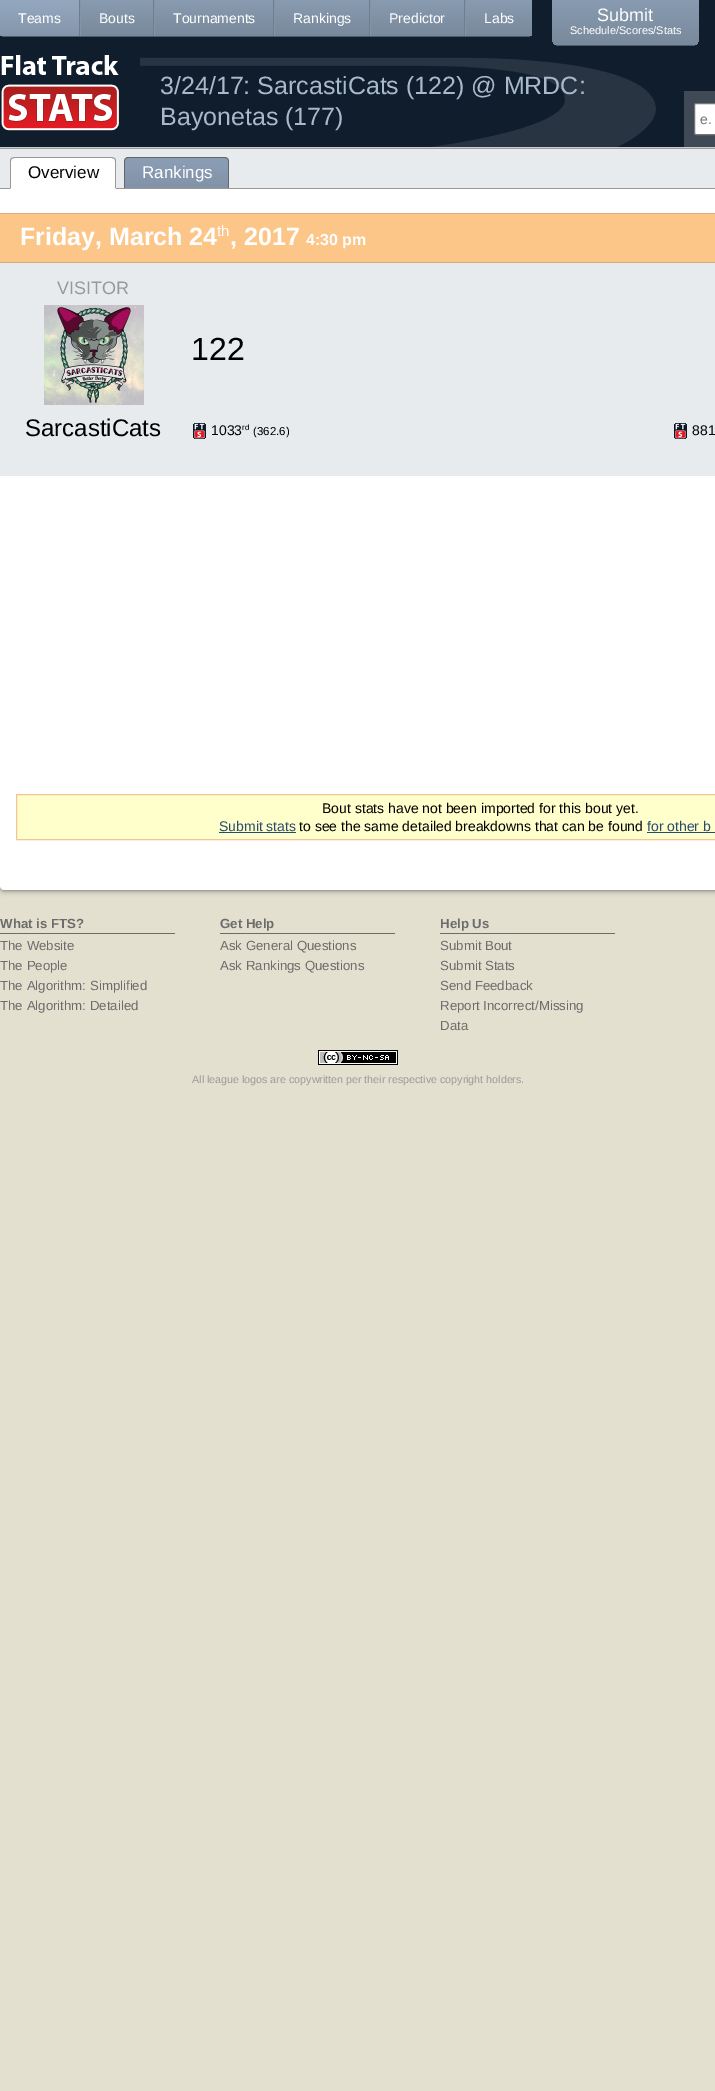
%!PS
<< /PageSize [715 2091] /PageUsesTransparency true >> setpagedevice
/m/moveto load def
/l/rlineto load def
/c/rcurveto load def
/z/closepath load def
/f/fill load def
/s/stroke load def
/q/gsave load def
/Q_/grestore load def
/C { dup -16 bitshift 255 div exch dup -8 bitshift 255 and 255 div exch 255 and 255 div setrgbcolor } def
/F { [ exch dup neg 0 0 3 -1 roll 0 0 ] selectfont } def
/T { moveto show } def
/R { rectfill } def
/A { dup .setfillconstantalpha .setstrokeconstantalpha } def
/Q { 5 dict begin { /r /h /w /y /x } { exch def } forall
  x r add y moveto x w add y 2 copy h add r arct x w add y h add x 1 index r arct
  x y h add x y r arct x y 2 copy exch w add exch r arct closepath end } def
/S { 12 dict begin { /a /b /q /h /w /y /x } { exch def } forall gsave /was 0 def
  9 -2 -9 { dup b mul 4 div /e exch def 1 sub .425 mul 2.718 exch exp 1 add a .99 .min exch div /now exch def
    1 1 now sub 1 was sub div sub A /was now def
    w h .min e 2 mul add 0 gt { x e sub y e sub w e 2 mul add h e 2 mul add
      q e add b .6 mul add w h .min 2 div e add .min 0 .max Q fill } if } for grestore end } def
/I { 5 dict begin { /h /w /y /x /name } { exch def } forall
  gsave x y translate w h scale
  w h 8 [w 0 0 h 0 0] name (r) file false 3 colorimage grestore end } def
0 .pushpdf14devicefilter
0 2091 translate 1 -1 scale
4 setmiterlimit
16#E4E0CF C
0 0 715 2091 R
16#555555 C
0 148 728 742 4 3 1 S
16#101D2D C
0 0 715 147 R
16#CCCCCC C
0 147 715 1 R
16#FFFFFF C
0 148 m 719 0 l 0 738 l 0 2 -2 4 -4 4 c -711 0 l -2 0 -4 -2 -4 -4 c z f
16#9A9D9F C
0 148 715 1 R
(1.rgb) 140 57 516 90 I
q
0 0 m 532 0 l 0 33 l 0 2 -2 4 -4 4 c -524 0 l -2 0 -4 -2 -4 -4 c z clip newpath
q 0 0 m 532 0 l 0 36 l -532 0 l z clip newpath
<< /ShadingType 2 /ColorSpace /DeviceRGB /Coords [266 0 266 36] /Extend [true true] /Function << /FunctionType 2 /Domain [0 1] /C0 [.533 .608 .69] /C1 [.475 .537 .612] /N 1 >> >> shfill Q_
Q_
16#4D5C6D C
2 36 528 1 R
q 0 0 m 80 0 l 0 36 l -76 0 l -2 0 -4 -2 -4 -4 c z clip newpath
<< /ShadingType 2 /ColorSpace /DeviceRGB /Coords [40 0 40 36] /Extend [true true] /Function << /FunctionType 2 /Domain [0 1] /C0 [.576 .659 .749] /C1 [.522 .588 .671] /N 1 >> >> shfill Q_
16#6F7C8B C
79 0 1 36 R
/LiberationSans-Regular 14 F
16#FFFFFF C
(Teams) 18 23 T
16#6F7C8B C
153 0 1 36 R
16#8495A8 C
80 0 1 36 R
16#FFFFFF C
(Bouts) 99 23 T
16#6F7C8B C
273 0 1 36 R
16#8495A8 C
154 0 1 36 R
16#FFFFFF C
(Tournaments) 173 23 T
16#6F7C8B C
369 0 1 36 R
16#8495A8 C
274 0 1 36 R
16#FFFFFF C
(Rankings) 293 23 T
16#6F7C8B C
464 0 1 36 R
16#8495A8 C
370 0 1 36 R
16#FFFFFF C
(Predictor) 389 23 T
16#8495A8 C
465 0 1 36 R
16#FFFFFF C
(Labs) 484 23 T
q
552 0 m 147 0 l 0 38 l 0 4.5 -3.5 8 -8 8 c -131 0 l -4.5 0 -8 -3.5 -8 -8 c z clip newpath
q 552 0 m 147 0 l 0 45 l -147 0 l z clip newpath
<< /ShadingType 2 /ColorSpace /DeviceRGB /Coords [626 0 626 45] /Extend [true true] /Function << /FunctionType 2 /Domain [0 1] /C0 [.533 .608 .69] /C1 [.475 .537 .612] /N 1 >> >> shfill Q_
Q_
16#4D5C6D C
556 45 139 1 R
/LiberationSans-Regular 18 F
16#FFFFFF C
(Submit) 597 21 T
/LiberationSans-Regular 11 F
(Schedule/Scores/Stats) 570 34 T
(2.rgb) 1 55 118 76 I
/LiberationSans-Regular 25 F
16#A9B8CA C
(3/24/17: SarcastiCats \(122\) @ MRDC:) 160 94 T
(Bayonetas \(177\)) 160 125 T
16#404A57 C
684 91 31 56 R
16#FFFFFF C
694.5 103.5 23 31 1.5 Q q f Q_
16#767676 C
s
/LiberationSans-Regular 14 F
16#757575 C
(e.) 700 124 T
16#E7EBEE C
0 149 715 39 R
16#999999 C
0 188 715 1 R
16#FFFFFF C
14 157 m 98 0 l 2 0 4 2 4 4 c 0 28 l -106 0 l 0 -28 l 0 -2 2 -4 4 -4 c z f
16#999999 C
14 157 m -3 1 l 1 1 l 2 -1 l 98 0 l 2 1 l 1 -1 l -3 -1 l z f
116 189 m 0 -28 l 0 -1 -.5 -2 -1 -3 c -1 1 l 1 0 1 1 1 2 c 0 27 l z f
16#FFFFFF C
116 189 m -1 -1 l -104 0 l -1 1 l z f
16#999999 C
10 189 m 1 -1 l 0 -27 l 0 -1 0 -2 1 -2 c -1 -1 l -.5 1 -1 2 -1 3 c z f
/LiberationSans-Regular 17 F
16#000000 C
(Overview) 28 178 T
q 128 158 m 97 0 l 1.5 0 3 1.5 3 3 c 0 27 l -103 0 l 0 -27 l 0 -1.5 1.5 -3 3 -3 c z clip newpath
<< /ShadingType 2 /ColorSpace /DeviceRGB /Coords [177 158 177 188] /Extend [true true] /Function << /FunctionType 2 /Domain [0 1] /C0 [.549 .62 .71] /C1 [.51 .576 .659] /N 1 >> >> shfill Q_
16#666666 C
128 157 m 97 0 l 2 0 4 2 4 4 c 0 27 l -105 0 l 0 -27 l 0 -2 2 -4 4 -4 c z 128 158 m 97 0 l 2 0 3 1 3 3 c 0 27 l -103 0 l 0 -27 l 0 -2 1 -3 3 -3 c z eofill
16#FFFFFF C
(Rankings) 142 178 T
16#E7EBEE C
0 263 715 213 R
16#FDC689 C
0 214 715 48 R
16#DAAC77 C
0 213 715 1 R
0 262 715 1 R
/LiberationSans-Bold 25 F
16#FFFFFF C
(Friday, March 24) 20 245 T
/LiberationSans-Regular 15 F
(th) 217 236 T
/LiberationSans-Bold 25 F
(, 2017) 230 245 T
/LiberationSans-Bold 16 F
(4:30 pm) 306 245 T
/LiberationSans-Regular 18 F
16#999999 C
(VISITOR) 57 294 T
(3.rgb) 44 305 100 100 I
/LiberationSans-Regular 24 F
16#000000 C
(SarcastiCats) 25 436 T
/LiberationSans-Regular 32 F
(122) 191 360 T
(4.rgb) 193 423 13 16 I
/LiberationSans-Regular 14 F
(1033) 211 435 T
/LiberationSans-Regular 8 F
(rd) 242 430 T
/LiberationSans-Regular 11.5 F
(\(362.6\)) 253 435 T
(4.rgb) 674 423 13 16 I
/LiberationSans-Regular 14 F
(881) 692 435 T
16#FFFFCC C
16.5 794.5 m 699 0 l 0 45 l -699 0 l z q f Q_
16#F5C496 C
s
16#000000 C
(Bout stats have not been imported for this bout yet.) 322 813 T
16#2A496F C
(Submit stats) 219 831 T
219 832 77 1 R
16#000000 C
(to see the same detailed breakdowns that can be found) 299 831 T
16#2A496F C
(for other b) 647 831 T
647 832 68 1 R
16#6C6C6C C
0 933 175 1 R
/LiberationSans-Bold 13.25 F
(What is FTS?) 0 928 T
/LiberationSans-Regular 13.25 F
(The Website) 0 950 T
(The People) 0 970 T
(The Algorithm: Simplified) 0 990 T
(The Algorithm: Detailed) 0 1010 T
220 933 175 1 R
/LiberationSans-Bold 13.25 F
(Get Help) 220 928 T
/LiberationSans-Regular 13.25 F
(Ask General Questions) 220 950 T
(Ask Rankings Questions) 220 970 T
440 933 175 1 R
/LiberationSans-Bold 13.25 F
(Help Us) 440 928 T
/LiberationSans-Regular 13.25 F
(Submit Bout) 440 950 T
(Submit Stats) 440 970 T
(Send Feedback) 440 990 T
(Report Incorrect/Missing) 440 1010 T
(Data) 440 1030 T
(5.rgb) 318 1050 80 15 I
/LiberationSans-Regular 10.7 F
16#999999 C
(All league logos are copywritten per their respective copyright holders.) 192 1083 T
.poppdf14devicefilter showpage
